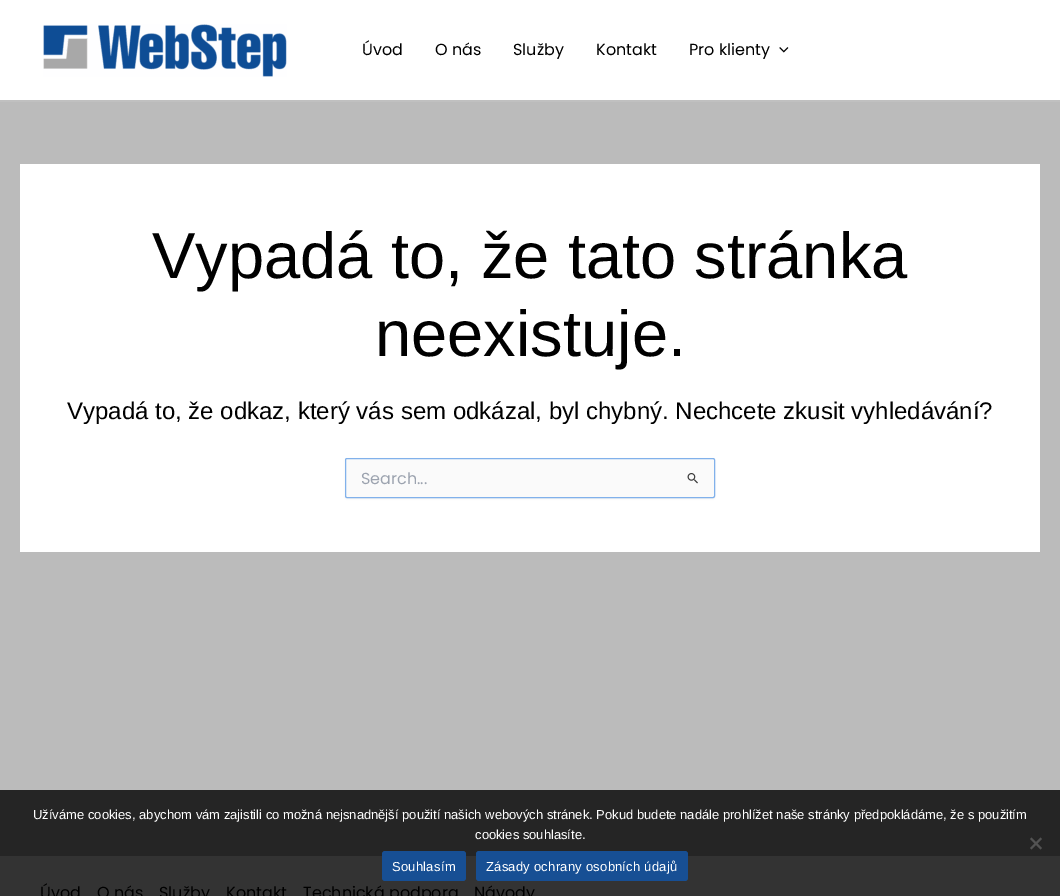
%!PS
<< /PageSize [1060 896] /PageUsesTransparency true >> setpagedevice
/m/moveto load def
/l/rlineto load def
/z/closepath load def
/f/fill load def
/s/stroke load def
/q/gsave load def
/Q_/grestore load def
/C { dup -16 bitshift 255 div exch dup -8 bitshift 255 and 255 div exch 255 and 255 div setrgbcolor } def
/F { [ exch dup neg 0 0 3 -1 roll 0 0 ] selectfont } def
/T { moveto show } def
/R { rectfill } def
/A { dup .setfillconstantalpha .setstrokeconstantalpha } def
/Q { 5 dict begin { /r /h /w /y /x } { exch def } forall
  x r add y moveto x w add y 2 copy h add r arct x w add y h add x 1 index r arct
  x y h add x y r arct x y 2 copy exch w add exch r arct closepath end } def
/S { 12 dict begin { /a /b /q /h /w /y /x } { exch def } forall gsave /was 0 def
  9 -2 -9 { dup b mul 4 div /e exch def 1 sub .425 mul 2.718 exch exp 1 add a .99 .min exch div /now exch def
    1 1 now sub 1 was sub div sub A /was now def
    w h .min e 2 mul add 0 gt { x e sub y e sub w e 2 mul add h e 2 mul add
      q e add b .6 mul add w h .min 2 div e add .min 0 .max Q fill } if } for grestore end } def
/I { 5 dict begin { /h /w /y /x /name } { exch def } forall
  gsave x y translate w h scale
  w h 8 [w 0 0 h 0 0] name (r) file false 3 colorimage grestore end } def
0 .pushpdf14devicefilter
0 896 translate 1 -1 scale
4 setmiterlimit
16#BBBBBB C
0 0 1060 896 R
16#252525 C
0 790 1060 66 R
16#FFFFFF C
0 0 1060 100 R
16#C0C0C0 C
0 100 1060 2 R
(1.rgb) 43 24 244 53 I
/Poppins-Regular 16 F
16#000000 C
(Úvod) 362 55 T
(O nás) 435 55 T
(Služby) 513 55 T
(Kontakt) 596 55 T
(Pro klienty) 689 55 T
(2.rgb) 779 47 10 6 I
16#FFFFFF C
20 164 1020 388 R
/LiberationSans-Regular 65 F
16#000000 C
(Vypadá to, že tato stránka) 152 278 T
(neexistuje.) 375 356 T
/LiberationSans-Regular 24 F
(Vypadá to, že odkaz, který vás sem odkázal, byl chybný. Nechcete zkusit vyhledávání?) 67 419 T
345 459 370 40 2 1 .05 S
16#FAFAFA C
345.5 458.5 369 39 1.5 Q q f Q_
16#81B1EB C
s
/Poppins-Regular 16 F
16#9CA3AF C
(Search...) 361 484 T
(3.rgb) 687 473 11 11 I
16#333333 C
0 856 1060 40 R
16#000000 C
(Úvod) 40 898 T
(O nás) 97 898 T
(Služby) 159 898 T
(Kontakt) 226 898 T
(Technická podpora) 303 898 T
(Návody) 474 898 T
/LiberationSans-Regular 13 F
16#FFFFFF C
(Užíváme cookies, abychom vám zajistili co možná nejsnadnější použití našich webových stránek. Pokud budete nadále prohlížet naše stránky předpokládáme, že s použitím) 33 819 T
(cookies souhlasíte.) 475 839 T
16#535353 C
1040.5 837.5 m 1.5 1.5 l -10.5 10.5 l -1.5 -1.5 l z f
1030 839 m 1.5 -1.5 l 10.5 10.5 l -1.5 1.5 l z f
16#174F94 C
382 851 84 30 3 Q f
16#FFFFFF C
392 871 m .25 0 (Souhlasím) ashow
16#174F94 C
476 851 212 30 3 Q f
16#FFFFFF C
486 871 m .25 0 (Zásady ochrany osobních údajů) ashow
.poppdf14devicefilter showpage
